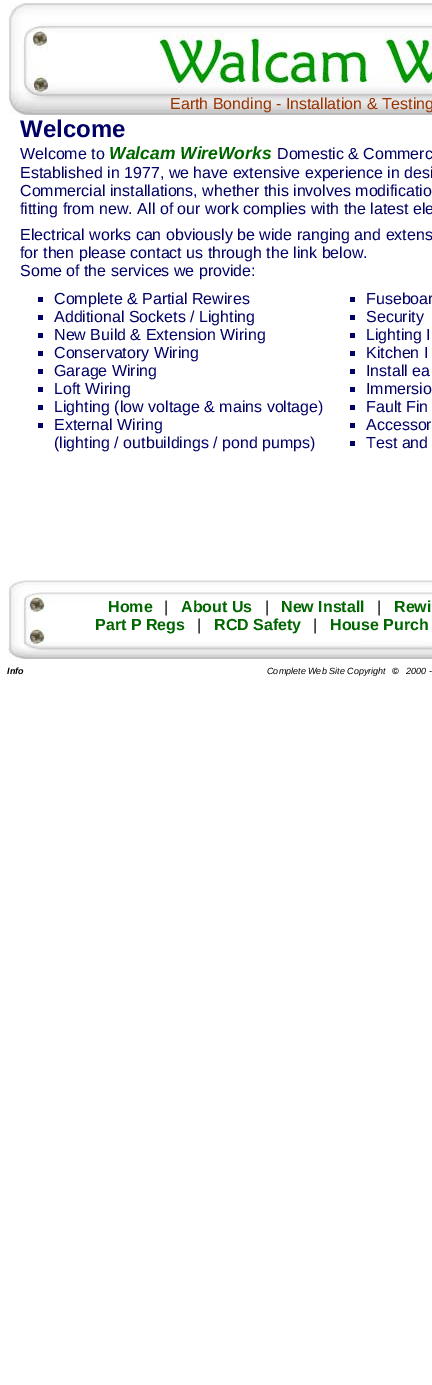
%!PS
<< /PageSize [432 1385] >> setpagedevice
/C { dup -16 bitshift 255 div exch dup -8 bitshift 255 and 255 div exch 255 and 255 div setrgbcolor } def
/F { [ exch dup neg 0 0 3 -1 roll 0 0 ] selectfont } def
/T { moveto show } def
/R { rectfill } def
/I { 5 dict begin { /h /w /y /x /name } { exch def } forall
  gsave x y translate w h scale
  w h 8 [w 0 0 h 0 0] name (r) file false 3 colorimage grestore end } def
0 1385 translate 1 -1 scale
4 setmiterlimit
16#FFFFFF C
0 0 432 1385 R
(1.rgb) 8 3 424 112 I
/LiberationSans-Regular 16 F
16#993300 C
(Earth Bonding - Installation & Testing) 170 109 T
/LiberationSans-Bold 24 F
16#000066 C
(Welcome) 20 137 T
/LiberationSans-Regular 16 F
(Welcome to) 20 159 T
/LiberationSans-BoldItalic 17.5 F
16#006600 C
(Walcam WireWorks) 109 159 T
/LiberationSans-Regular 16 F
16#000066 C
(Domestic & Commerc) 277 159 T
(Established in 1977, we have extensive experience in desi) 20 178 T
(Commercial installations, whether this involves modificatio) 20 196 T
(fitting from new. All of our work complies with the latest ele) 20 214 T
(Electrical works can obviously be wide ranging and extens) 20 240 T
(for then please contact us through the link below.) 20 258 T
(Some of the services we provide:) 20 276 T
38 297 5 5 R
(Complete & Partial Rewires) 54 304 T
38 315 5 5 R
(Additional Sockets / Lighting) 54 322 T
38 333 5 5 R
(New Build & Extension Wiring) 54 340 T
38 351 5 5 R
(Conservatory Wiring) 54 358 T
38 369 5 5 R
(Garage Wiring) 54 376 T
38 387 5 5 R
(Loft Wiring) 54 394 T
38 405 5 5 R
(Lighting \(low voltage & mains voltage\)) 54 412 T
38 423 5 5 R
(External Wiring) 54 430 T
(\(lighting / outbuildings / pond pumps\)) 54 448 T
350 297 5 5 R
(Fuseboar) 366 304 T
350 315 5 5 R
(Security) 366 322 T
350 333 5 5 R
(Lighting I) 366 340 T
350 351 5 5 R
(Kitchen I) 366 358 T
350 369 5 5 R
(Install ea) 366 376 T
350 387 5 5 R
(Immersio) 366 394 T
350 405 5 5 R
(Fault Fin) 366 412 T
350 423 5 5 R
(Accessor) 366 430 T
350 441 5 5 R
(Test and) 366 448 T
(2.rgb) 8 580 424 80 I
/LiberationSans-Bold 16 F
16#006600 C
(Home) 108 612 T
/LiberationSans-Regular 16 F
16#000000 C
(|) 164 612 T
/LiberationSans-Bold 16 F
16#006600 C
(About Us) 181 612 T
/LiberationSans-Regular 16 F
16#000000 C
(|) 265 612 T
/LiberationSans-Bold 16 F
16#006600 C
(New Install) 281 612 T
/LiberationSans-Regular 16 F
16#000000 C
(|) 377 612 T
/LiberationSans-Bold 16 F
16#006600 C
(Rewi) 394 612 T
(Part P Regs) 95 630 T
/LiberationSans-Regular 16 F
16#000000 C
(|) 197 630 T
/LiberationSans-Bold 16 F
16#006600 C
(RCD Safety) 214 630 T
/LiberationSans-Regular 16 F
16#000000 C
(|) 313 630 T
/LiberationSans-Bold 16 F
16#006600 C
(House Purch) 330 630 T
/LiberationSans-BoldItalic 9 F
16#000000 C
(Info) 7 674 T
/LiberationSans-Italic 9 F
(Complete Web Site Copyright) 267 674 T
/LiberationSans-BoldItalic 9 F
(©) 392 674 T
/LiberationSans-Italic 9 F
(2000 -) 406 674 T
showpage
